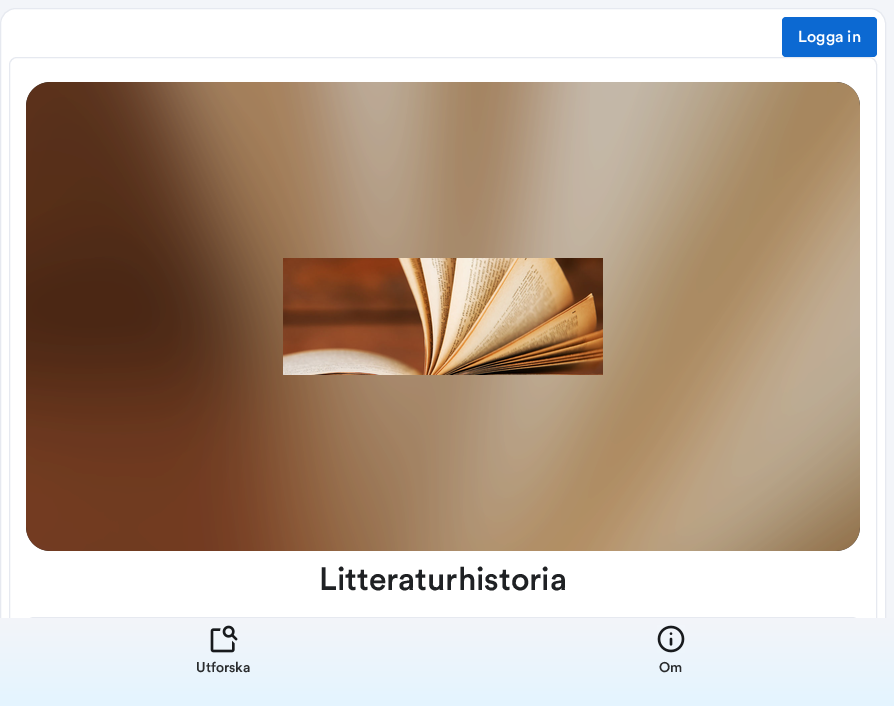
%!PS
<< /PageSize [894 706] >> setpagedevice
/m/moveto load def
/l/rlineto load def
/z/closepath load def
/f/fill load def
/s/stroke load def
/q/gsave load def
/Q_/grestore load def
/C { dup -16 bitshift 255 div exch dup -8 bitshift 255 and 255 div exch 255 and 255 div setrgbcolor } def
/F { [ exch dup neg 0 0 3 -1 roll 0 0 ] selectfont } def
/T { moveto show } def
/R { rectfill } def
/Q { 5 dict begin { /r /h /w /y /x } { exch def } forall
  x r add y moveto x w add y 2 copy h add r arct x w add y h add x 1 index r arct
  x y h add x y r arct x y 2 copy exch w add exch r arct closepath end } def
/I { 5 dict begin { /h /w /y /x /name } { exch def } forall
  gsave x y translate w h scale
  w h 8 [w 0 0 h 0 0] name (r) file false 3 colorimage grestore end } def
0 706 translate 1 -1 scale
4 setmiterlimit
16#F3F5F9 C
0 0 894 706 R
16#FFFFFF C
.5 8.5 885 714 15.5 Q q f Q_
16#E6E9F0 C
s
16#0C69D2 C
782 17 95 40 4 Q f
/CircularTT-Medium 16 F
16#FFFFFF C
(Logga in) 798 42 T
16#E6E9F0 C
9.5 57.5 867 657 7.5 Q s
16#111111 C
26 82 834 469 24 Q f
(1.rgb) 26 82 834 469 I
(2.rgb) 283 258 320 117 I
/CircularTT-Medium 32 F
16#1F2124 C
(Litteraturhistoria) 319 590 T
16#E6E9F0 C
26.5 617.5 833 75 7.5 Q s
q 0 618 m 894 0 l 0 88 l -894 0 l z clip newpath
<< /ShadingType 2 /ColorSpace /DeviceRGB /Coords [447 618 447 706] /Extend [true true] /Function << /FunctionType 2 /Domain [0 1] /C0 [.953 .961 .976] /C1 [.894 .957 1] /N 1 >> >> shfill Q_
(3.rgb) 210 625 28 28 I
/CircularTT-Medium 14 F
16#2A2C2E C
(Utforska) 196 672 T
(4.rgb) 657 625 28 28 I
(Om) 659 672 T
showpage
